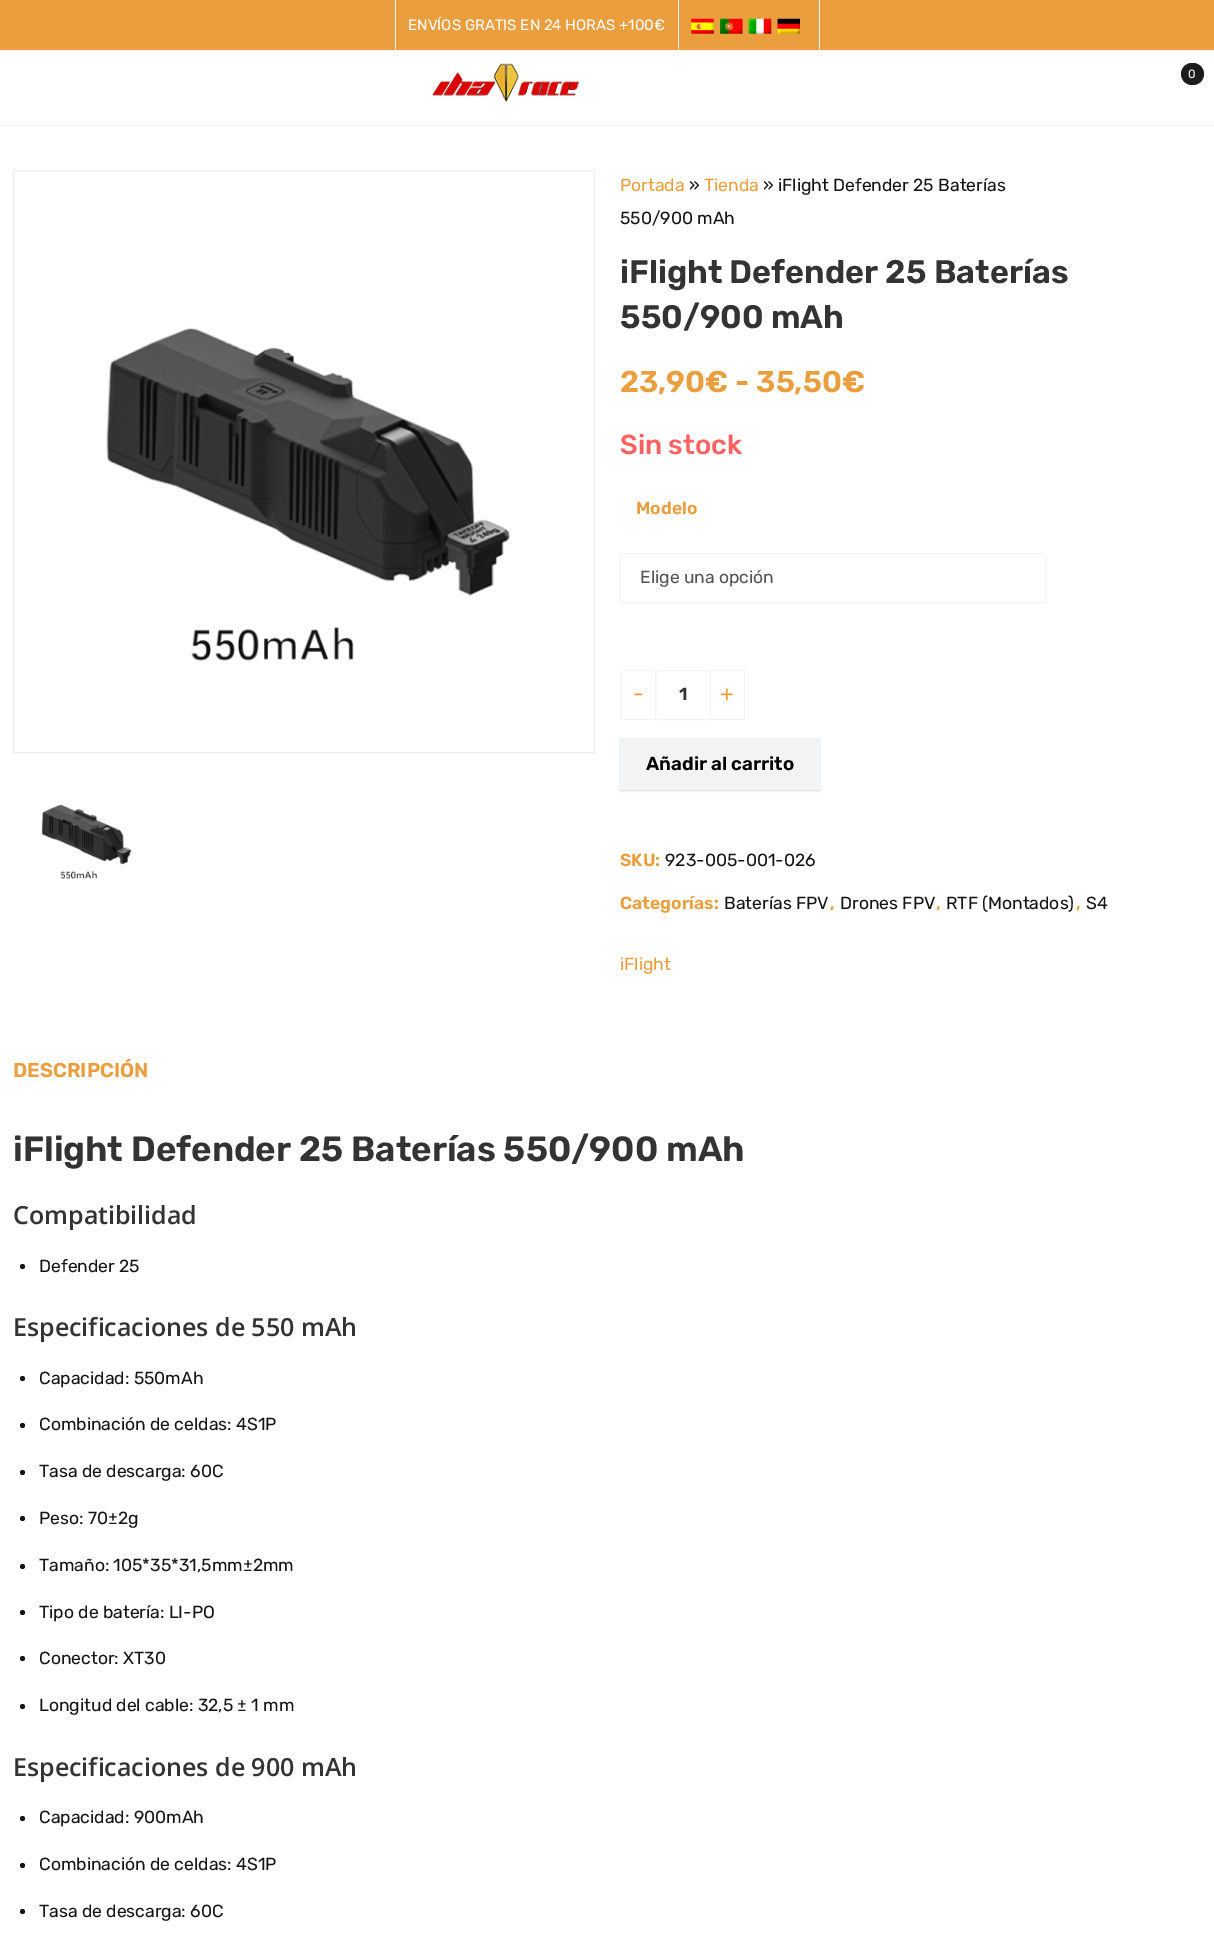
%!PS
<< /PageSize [1214 1940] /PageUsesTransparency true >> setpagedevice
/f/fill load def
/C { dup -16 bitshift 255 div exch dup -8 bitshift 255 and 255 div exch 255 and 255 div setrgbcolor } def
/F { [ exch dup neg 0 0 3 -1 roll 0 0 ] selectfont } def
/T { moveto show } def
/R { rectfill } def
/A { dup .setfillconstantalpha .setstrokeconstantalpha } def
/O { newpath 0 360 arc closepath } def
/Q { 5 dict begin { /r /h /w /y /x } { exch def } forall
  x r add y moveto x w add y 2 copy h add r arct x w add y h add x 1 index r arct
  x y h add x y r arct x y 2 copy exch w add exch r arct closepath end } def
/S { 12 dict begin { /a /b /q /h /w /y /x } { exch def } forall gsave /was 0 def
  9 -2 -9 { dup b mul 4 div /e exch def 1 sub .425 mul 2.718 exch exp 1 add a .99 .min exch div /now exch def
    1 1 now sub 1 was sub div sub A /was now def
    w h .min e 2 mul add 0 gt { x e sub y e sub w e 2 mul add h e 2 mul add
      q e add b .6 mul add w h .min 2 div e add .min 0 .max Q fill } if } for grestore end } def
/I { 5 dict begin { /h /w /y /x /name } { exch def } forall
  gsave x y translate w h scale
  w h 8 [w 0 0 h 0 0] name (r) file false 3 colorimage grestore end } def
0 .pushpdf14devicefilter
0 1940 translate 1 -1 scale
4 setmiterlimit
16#FFFFFF C
0 0 1214 1940 R
16#EA9E3D C
0 0 1214 50 R
16#F5F3F3 C
0 50 1214 1 R
395 0 1 50 R
/Rubik-Regular 15 F
16#FFFFFF C
(ENVÍOS GRATIS EN 24 HORAS +100€) 408 30 T
16#F5F3F3 C
819 0 1 50 R
678 0 1 50 R
(1.rgb) 691 18 23 16 I
(2.rgb) 720 18 23 16 I
(3.rgb) 748 18 24 16 I
(4.rgb) 777 18 23 16 I
0 125 1214 1 R
(5.rgb) 432 63 148 39 I
16#1C1C1C C
1181 63 23 22 11 Q f
/Rubik-Regular 12 F
16#FFFFFF C
(0) 1188 78 T
16#EEEEEE C
13.5 170.5 581 582 rectstroke
(6.rgb) 106 327 404 334 I
(7.rgb) 41 804 91 75 I
/Rubik-Regular 17.5 F
16#EA9E3D C
(Portada) 620 191 T
16#141414 C
(») 689 191 T
16#EA9E3D C
(Tienda) 704 191 T
16#141414 C
(» iFlight Defender 25 Baterías) 763 191 T
(550/900 mAh) 620 224 T
/Rubik-SemiBold 32.5 F
16#333333 C
(iFlight Defender 25 Baterías) 620 283 T
(550/900 mAh) 620 328 T
/Rubik-SemiBold 30 F
16#EA9E3D C
(23,90€ - 35,50€) 620 392 T
/Rubik-Medium 27.5 F
16#FF6161 C
(Sin stock) 620 454 T
/Rubik-SemiBold 17.5 F
16#EA9E3D C
(Modelo) 636 514 T
16#F5F3F3 C
620.5 553.5 425 49 rectstroke
/Rubik-Regular 17.5 F
16#545454 C
(Elige una opción) 640 583 T
16#F5F3F3 C
621 670 34 1 R
621 719 34 1 R
621 670 1 50 R
/Rubik-Regular 22 F
16#EA9E3D C
(-) 633 701 T
16#F5F3F3 C
655.5 670.5 55 49 rectstroke
/Rubik-SemiBold 17.5 F
16#333333 C
(1) 679 700 T
16#F5F3F3 C
711 670 34 1 R
744 670 1 50 R
711 719 34 1 R
/Rubik-Regular 22 F
16#EA9E3D C
(+) 720 701 T
16#000000 C
620 739 200 52 0 1 .15 S
16#F1F3F4 C
620 738 200 52 R
/Rubik-SemiBold 18.75 F
16#000000 C
(Añadir al carrito) 646 770 T
/Rubik-SemiBold 17.5 F
16#EA9E3D C
(SKU:) 620 866 T
/Rubik-Regular 17.5 F
16#141414 C
(923-005-001-026) 665 866 T
/Rubik-SemiBold 17.5 F
16#EA9E3D C
(Categorías:) 620 909 T
/Rubik-Regular 17.5 F
16#141414 C
(Baterías FPV) 724 909 T
/Rubik-SemiBold 17.5 F
16#EA9E3D C
(,) 830 909 T
/Rubik-Regular 17.5 F
16#141414 C
(Drones FPV) 840 909 T
/Rubik-SemiBold 17.5 F
16#EA9E3D C
(,) 936 909 T
/Rubik-Regular 17.5 F
16#141414 C
(RTF \(Montados\)) 946 909 T
/Rubik-SemiBold 17.5 F
16#EA9E3D C
(,) 1076 909 T
/Rubik-Regular 17.5 F
16#141414 C
(S4) 1086 909 T
16#EA9E3D C
(iFlight) 620 970 T
/Rubik-SemiBold 20 F
(DESCRIPCIÓN) 13 1077 T
/Rubik-SemiBold 35 F
16#333333 C
(iFlight Defender 25 Baterías 550/900 mAh) 13 1161 T
/OpenSans-SemiBold 25 F
(Compatibilidad) 13 1224 T
16#141414 C
22.5 1266.5 2.5 O f
/Rubik-Regular 17.5 F
(Defender 25) 39 1272 T
/OpenSans-SemiBold 25 F
16#333333 C
(Especificaciones de 550 mAh) 13 1336 T
16#141414 C
22.5 1378.5 2.5 O f
/Rubik-Regular 17.5 F
(Capacidad: 550mAh) 39 1384 T
22.5 1425.5 2.5 O f
(Combinación de celdas: 4S1P) 39 1430 T
22.5 1472.5 2.5 O f
(Tasa de descarga: 60C) 39 1477 T
22.5 1518.5 2.5 O f
(Peso: 70±2g) 39 1524 T
22.5 1566.5 2.5 O f
(Tamaño: 105*35*31,5mm±2mm) 39 1571 T
22.5 1612.5 2.5 O f
(Tipo de batería: LI-PO) 39 1618 T
22.5 1658.5 2.5 O f
(Conector: XT30) 39 1664 T
22.5 1706.5 2.5 O f
(Longitud del cable: 32,5 ± 1 mm) 39 1711 T
/OpenSans-SemiBold 25 F
16#333333 C
(Especificaciones de 900 mAh) 13 1776 T
16#141414 C
22.5 1818.5 2.5 O f
/Rubik-Regular 17.5 F
(Capacidad: 900mAh) 39 1823 T
22.5 1865.5 2.5 O f
(Combinación de celdas: 4S1P) 39 1870 T
22.5 1911.5 2.5 O f
(Tasa de descarga: 60C) 39 1917 T
.poppdf14devicefilter showpage
